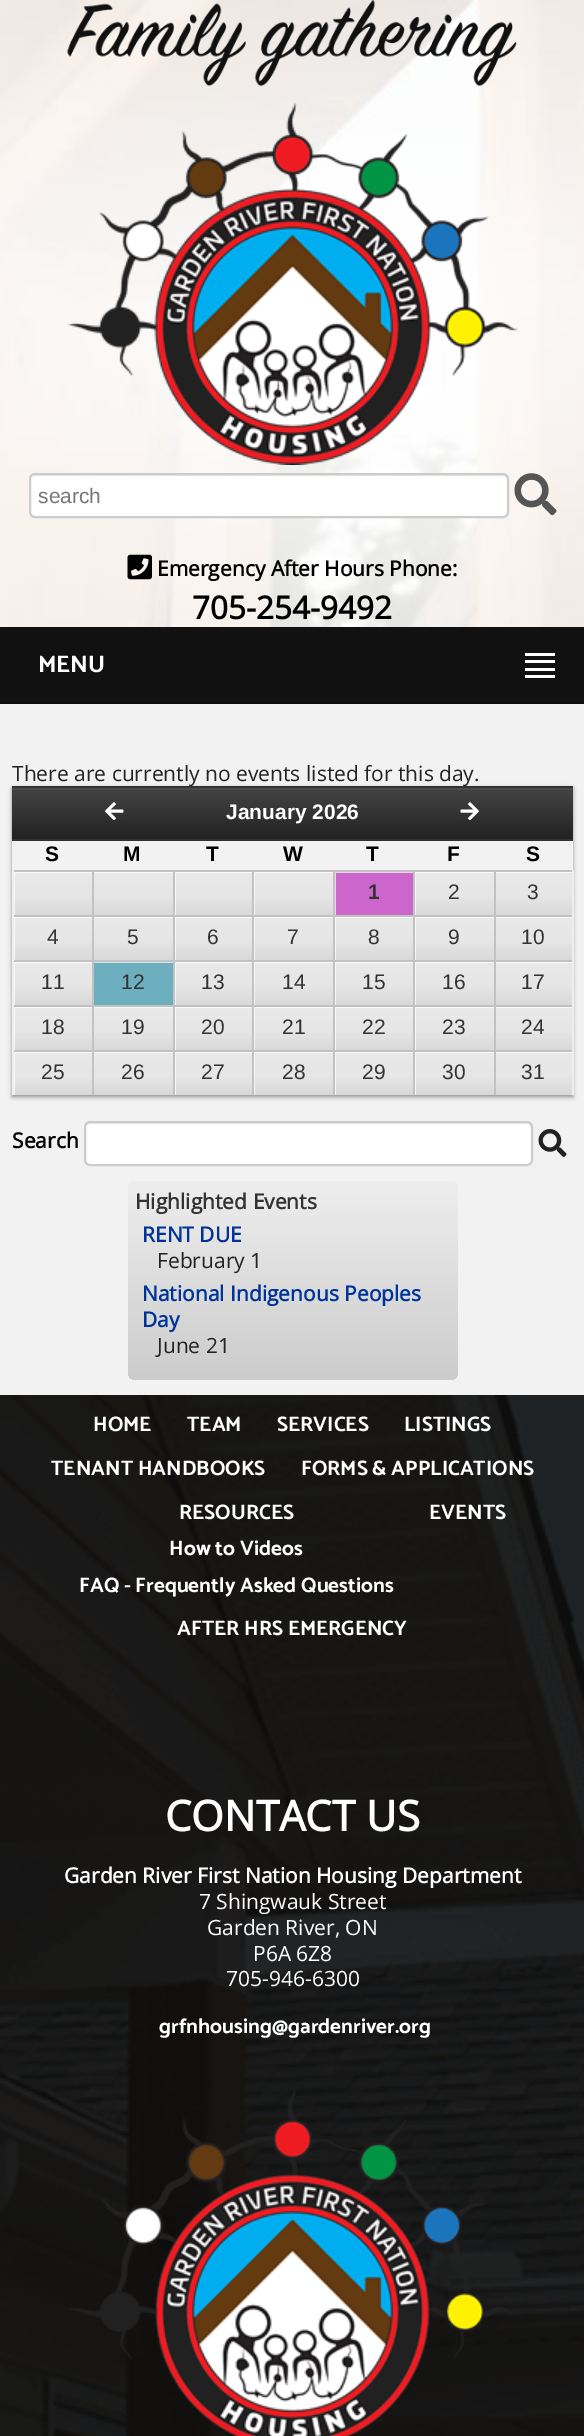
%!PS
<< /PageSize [584 2436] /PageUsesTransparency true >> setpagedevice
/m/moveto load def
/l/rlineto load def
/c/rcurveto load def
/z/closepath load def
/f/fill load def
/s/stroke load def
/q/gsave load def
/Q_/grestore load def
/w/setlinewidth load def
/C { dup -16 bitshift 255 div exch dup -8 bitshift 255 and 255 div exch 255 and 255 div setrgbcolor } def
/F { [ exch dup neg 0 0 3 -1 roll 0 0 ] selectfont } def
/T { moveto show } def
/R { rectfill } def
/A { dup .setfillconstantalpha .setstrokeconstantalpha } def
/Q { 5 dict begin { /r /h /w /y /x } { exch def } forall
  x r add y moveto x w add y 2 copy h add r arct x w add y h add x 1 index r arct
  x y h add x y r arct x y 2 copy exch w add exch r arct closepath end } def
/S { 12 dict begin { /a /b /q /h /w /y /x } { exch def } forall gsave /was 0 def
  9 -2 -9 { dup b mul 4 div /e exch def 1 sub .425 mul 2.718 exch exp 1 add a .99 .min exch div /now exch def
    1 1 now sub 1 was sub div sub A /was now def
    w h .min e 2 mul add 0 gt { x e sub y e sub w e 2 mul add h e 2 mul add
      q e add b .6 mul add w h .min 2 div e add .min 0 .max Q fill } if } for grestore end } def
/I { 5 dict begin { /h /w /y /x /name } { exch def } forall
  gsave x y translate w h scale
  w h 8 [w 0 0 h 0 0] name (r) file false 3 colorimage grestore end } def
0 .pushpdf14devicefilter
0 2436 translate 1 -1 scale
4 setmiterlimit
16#F2F2F2 C
0 0 584 2436 R
(1.rgb) 0 0 584 627 I
(2.rgb) 67 0 450 87 I
(3.rgb) 67 102 451 363 I
16#FFFFFF C
29 473 480 45 6 Q f
16#ECECEC C
34 476 m 468 0 l 3 0 5 2 5 4 c 0 -1 l 0 -3 -2 -5 -5 -5 c -467 0 l -3 0 -5 2 -5 5 c 0 1 l 0 -2 2 -4 4 -4 c z f
16#CCCCCC C
2 w
30 474 478 43 5 Q s
/LiberationSans-Regular 21 F
16#757575 C
(search) 38 503 T
(4.rgb) 514 473 43 43 I
(5.rgb) 127 554 25 26 I
/OpenSans-Bold 21 F
16#000000 C
(Emergency After Hours Phone:) 157 576 T
/OpenSans-Bold 31.5 F
(705-254-9492) 192 619 T
16#111111 C
0 627 584 75 R
16#0F0F0F C
0 702 584 2 R
/Catamaran-Thin 24 F
16#FFFFFF C
(MENU) 38 672 T
525 653 30 3 R
525 660 30 3 R
525 668 30 3 R
525 675 30 3 R
q
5 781 m 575 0 l 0 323 l -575 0 l z 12 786 m 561 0 l 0 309 l -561 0 l z eoclip newpath
16#000000 C
12 788 561 309 0 2 .4 S
Q_
16#333333 C
12 786 561 2 R
/OpenSans-Regular 21 F
16#222222 C
(There are currently no events listed for this day.) 12 781 T
q 12 790 m 561 0 l 0 49 l -561 0 l z clip newpath
<< /ShadingType 2 /ColorSpace /DeviceRGB /Coords [293 788 293 839] /Extend [true true] /Function << /FunctionType 2 /Domain [0 1] /C0 [.267 .267 .267] /C1 [.133 .133 .133] /N 1 >> >> shfill Q_
16#4B4B4B C
12 788 561 2 R
16#313131 C
12 839 561 2 R
(6.rgb) 105 802 19 18 I
/LiberationSans-Bold 21 F
16#FFFFFF C
(January 2026) 226 819 T
(7.rgb) 460 802 19 18 I
16#000000 C
(S) 45 861 T
(M) 123 861 T
(T) 206 861 T
(W) 283 861 T
(T) 366 861 T
(F) 447 861 T
(S) 526 861 T
q 14 872 m 78 0 l 0 43 l -78 0 l z clip newpath
<< /ShadingType 2 /ColorSpace /DeviceRGB /Coords [53 872 53 915] /Extend [true true] /Function << /FunctionType 3 /Domain [0 1] /Functions [<< /FunctionType 2 /Domain [0 1] /C0 [.918 .918 .918] /C1 [.898 .898 .898] /N 1 >> << /FunctionType 2 /Domain [0 1] /C0 [.898 .898 .898] /C1 [.851 .851 .851] /N 1 >>] /Bounds [.6] /Encode [0 1 0 1] >> >> shfill Q_
q
14 872 78 43 rectclip
0.7 A
16#FFFFFF C
-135 723 m 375 0 l 0 341 l -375 0 l z 15 873 m 78 0 l 0 43 l -78 0 l z eofill
Q_
16#C2C2C2 C
12 870 561 2 R
16#EEEEEE C
12 870 2 45 R
q 94 872 m 79 0 l 0 43 l -79 0 l z clip newpath
<< /ShadingType 2 /ColorSpace /DeviceRGB /Coords [133 872 133 915] /Extend [true true] /Function << /FunctionType 3 /Domain [0 1] /Functions [<< /FunctionType 2 /Domain [0 1] /C0 [.918 .918 .918] /C1 [.898 .898 .898] /N 1 >> << /FunctionType 2 /Domain [0 1] /C0 [.898 .898 .898] /C1 [.851 .851 .851] /N 1 >>] /Bounds [.6] /Encode [0 1 0 1] >> >> shfill Q_
q
93 872 80 43 rectclip
0.7 A
16#FFFFFF C
-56 723 m 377 0 l 0 341 l -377 0 l z 94 873 m 80 0 l 0 43 l -80 0 l z eofill
Q_
16#C2C2C2 C
92 870 2 45 R
q 175 872 m 77 0 l 0 43 l -77 0 l z clip newpath
<< /ShadingType 2 /ColorSpace /DeviceRGB /Coords [213 872 213 915] /Extend [true true] /Function << /FunctionType 3 /Domain [0 1] /Functions [<< /FunctionType 2 /Domain [0 1] /C0 [.918 .918 .918] /C1 [.898 .898 .898] /N 1 >> << /FunctionType 2 /Domain [0 1] /C0 [.898 .898 .898] /C1 [.851 .851 .851] /N 1 >>] /Bounds [.6] /Encode [0 1 0 1] >> >> shfill Q_
q
174 872 78 43 rectclip
0.7 A
16#FFFFFF C
26 723 m 374 0 l 0 341 l -374 0 l z 176 873 m 78 0 l 0 43 l -78 0 l z eofill
Q_
173 870 2 45 R
q 254 872 m 79 0 l 0 43 l -79 0 l z clip newpath
<< /ShadingType 2 /ColorSpace /DeviceRGB /Coords [293 872 293 915] /Extend [true true] /Function << /FunctionType 3 /Domain [0 1] /Functions [<< /FunctionType 2 /Domain [0 1] /C0 [.918 .918 .918] /C1 [.898 .898 .898] /N 1 >> << /FunctionType 2 /Domain [0 1] /C0 [.898 .898 .898] /C1 [.851 .851 .851] /N 1 >>] /Bounds [.6] /Encode [0 1 0 1] >> >> shfill Q_
q
254 872 79 43 rectclip
0.7 A
16#FFFFFF C
105 723 m 377 0 l 0 341 l -377 0 l z 255 873 m 79 0 l 0 43 l -79 0 l z eofill
Q_
252 870 2 45 R
16#CC66CC C
336 873 77 42 R
q
335 872 78 43 rectclip
16#F0D1F0 C
186 723 m 375 0 l 0 341 l -375 0 l z 336 873 m 78 0 l 0 43 l -78 0 l z eofill
Q_
16#C2C2C2 C
333 870 2 45 R
16#333333 C
(1) 368 899 T
q 415 872 m 79 0 l 0 43 l -79 0 l z clip newpath
<< /ShadingType 2 /ColorSpace /DeviceRGB /Coords [454 872 454 915] /Extend [true true] /Function << /FunctionType 3 /Domain [0 1] /Functions [<< /FunctionType 2 /Domain [0 1] /C0 [.918 .918 .918] /C1 [.898 .898 .898] /N 1 >> << /FunctionType 2 /Domain [0 1] /C0 [.898 .898 .898] /C1 [.851 .851 .851] /N 1 >>] /Bounds [.6] /Encode [0 1 0 1] >> >> shfill Q_
q
414 872 80 43 rectclip
0.7 A
16#FFFFFF C
266 723 m 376 0 l 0 341 l -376 0 l z 416 873 m 79 0 l 0 43 l -79 0 l z eofill
Q_
16#C2C2C2 C
413 870 2 45 R
/LiberationSans-Regular 21 F
16#333333 C
(2) 448 899 T
q 496 872 m 76 0 l 0 43 l -76 0 l z clip newpath
<< /ShadingType 2 /ColorSpace /DeviceRGB /Coords [533 872 533 915] /Extend [true true] /Function << /FunctionType 3 /Domain [0 1] /Functions [<< /FunctionType 2 /Domain [0 1] /C0 [.918 .918 .918] /C1 [.898 .898 .898] /N 1 >> << /FunctionType 2 /Domain [0 1] /C0 [.898 .898 .898] /C1 [.851 .851 .851] /N 1 >>] /Bounds [.6] /Encode [0 1 0 1] >> >> shfill Q_
q
495 872 77 43 rectclip
0.7 A
16#FFFFFF C
346 723 m 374 0 l 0 341 l -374 0 l z 496 873 m 77 0 l 0 43 l -77 0 l z eofill
Q_
16#EEEEEE C
572 870 2 45 R
16#C2C2C2 C
494 870 2 45 R
16#333333 C
(3) 527 899 T
q 14 917 m 78 0 l 0 43 l -78 0 l z clip newpath
<< /ShadingType 2 /ColorSpace /DeviceRGB /Coords [53 917 53 960] /Extend [true true] /Function << /FunctionType 3 /Domain [0 1] /Functions [<< /FunctionType 2 /Domain [0 1] /C0 [.918 .918 .918] /C1 [.898 .898 .898] /N 1 >> << /FunctionType 2 /Domain [0 1] /C0 [.898 .898 .898] /C1 [.851 .851 .851] /N 1 >>] /Bounds [.6] /Encode [0 1 0 1] >> >> shfill Q_
q
14 917 78 43 rectclip
0.7 A
16#FFFFFF C
-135 768 m 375 0 l 0 340 l -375 0 l z 15 918 m 78 0 l 0 44 l -78 0 l z eofill
Q_
16#C2C2C2 C
12 915 561 2 R
16#EEEEEE C
12 915 2 45 R
16#333333 C
(4) 47 944 T
q 94 917 m 79 0 l 0 43 l -79 0 l z clip newpath
<< /ShadingType 2 /ColorSpace /DeviceRGB /Coords [133 917 133 960] /Extend [true true] /Function << /FunctionType 3 /Domain [0 1] /Functions [<< /FunctionType 2 /Domain [0 1] /C0 [.918 .918 .918] /C1 [.898 .898 .898] /N 1 >> << /FunctionType 2 /Domain [0 1] /C0 [.898 .898 .898] /C1 [.851 .851 .851] /N 1 >>] /Bounds [.6] /Encode [0 1 0 1] >> >> shfill Q_
q
93 917 80 43 rectclip
0.7 A
16#FFFFFF C
-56 768 m 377 0 l 0 340 l -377 0 l z 94 918 m 80 0 l 0 44 l -80 0 l z eofill
Q_
16#C2C2C2 C
92 915 2 45 R
16#333333 C
(5) 127 944 T
q 175 917 m 77 0 l 0 43 l -77 0 l z clip newpath
<< /ShadingType 2 /ColorSpace /DeviceRGB /Coords [213 917 213 960] /Extend [true true] /Function << /FunctionType 3 /Domain [0 1] /Functions [<< /FunctionType 2 /Domain [0 1] /C0 [.918 .918 .918] /C1 [.898 .898 .898] /N 1 >> << /FunctionType 2 /Domain [0 1] /C0 [.898 .898 .898] /C1 [.851 .851 .851] /N 1 >>] /Bounds [.6] /Encode [0 1 0 1] >> >> shfill Q_
q
174 917 78 43 rectclip
0.7 A
16#FFFFFF C
26 768 m 374 0 l 0 340 l -374 0 l z 176 918 m 78 0 l 0 44 l -78 0 l z eofill
Q_
16#C2C2C2 C
173 915 2 45 R
16#333333 C
(6) 207 944 T
q 254 917 m 79 0 l 0 43 l -79 0 l z clip newpath
<< /ShadingType 2 /ColorSpace /DeviceRGB /Coords [293 917 293 960] /Extend [true true] /Function << /FunctionType 3 /Domain [0 1] /Functions [<< /FunctionType 2 /Domain [0 1] /C0 [.918 .918 .918] /C1 [.898 .898 .898] /N 1 >> << /FunctionType 2 /Domain [0 1] /C0 [.898 .898 .898] /C1 [.851 .851 .851] /N 1 >>] /Bounds [.6] /Encode [0 1 0 1] >> >> shfill Q_
q
254 917 79 43 rectclip
0.7 A
16#FFFFFF C
105 768 m 377 0 l 0 340 l -377 0 l z 255 918 m 79 0 l 0 44 l -79 0 l z eofill
Q_
16#C2C2C2 C
252 915 2 45 R
16#333333 C
(7) 287 944 T
q 335 917 m 78 0 l 0 43 l -78 0 l z clip newpath
<< /ShadingType 2 /ColorSpace /DeviceRGB /Coords [374 917 374 960] /Extend [true true] /Function << /FunctionType 3 /Domain [0 1] /Functions [<< /FunctionType 2 /Domain [0 1] /C0 [.918 .918 .918] /C1 [.898 .898 .898] /N 1 >> << /FunctionType 2 /Domain [0 1] /C0 [.898 .898 .898] /C1 [.851 .851 .851] /N 1 >>] /Bounds [.6] /Encode [0 1 0 1] >> >> shfill Q_
q
335 917 78 43 rectclip
0.7 A
16#FFFFFF C
186 768 m 375 0 l 0 340 l -375 0 l z 336 918 m 78 0 l 0 44 l -78 0 l z eofill
Q_
16#C2C2C2 C
333 915 2 45 R
16#333333 C
(8) 368 944 T
q 415 917 m 79 0 l 0 43 l -79 0 l z clip newpath
<< /ShadingType 2 /ColorSpace /DeviceRGB /Coords [454 917 454 960] /Extend [true true] /Function << /FunctionType 3 /Domain [0 1] /Functions [<< /FunctionType 2 /Domain [0 1] /C0 [.918 .918 .918] /C1 [.898 .898 .898] /N 1 >> << /FunctionType 2 /Domain [0 1] /C0 [.898 .898 .898] /C1 [.851 .851 .851] /N 1 >>] /Bounds [.6] /Encode [0 1 0 1] >> >> shfill Q_
q
414 917 80 43 rectclip
0.7 A
16#FFFFFF C
266 768 m 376 0 l 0 340 l -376 0 l z 416 918 m 79 0 l 0 44 l -79 0 l z eofill
Q_
16#C2C2C2 C
413 915 2 45 R
16#333333 C
(9) 448 944 T
q 496 917 m 76 0 l 0 43 l -76 0 l z clip newpath
<< /ShadingType 2 /ColorSpace /DeviceRGB /Coords [533 917 533 960] /Extend [true true] /Function << /FunctionType 3 /Domain [0 1] /Functions [<< /FunctionType 2 /Domain [0 1] /C0 [.918 .918 .918] /C1 [.898 .898 .898] /N 1 >> << /FunctionType 2 /Domain [0 1] /C0 [.898 .898 .898] /C1 [.851 .851 .851] /N 1 >>] /Bounds [.6] /Encode [0 1 0 1] >> >> shfill Q_
q
495 917 77 43 rectclip
0.7 A
16#FFFFFF C
346 768 m 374 0 l 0 340 l -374 0 l z 496 918 m 77 0 l 0 44 l -77 0 l z eofill
Q_
16#EEEEEE C
572 915 2 45 R
16#C2C2C2 C
494 915 2 45 R
16#333333 C
(10) 521 944 T
q 14 962 m 78 0 l 0 43 l -78 0 l z clip newpath
<< /ShadingType 2 /ColorSpace /DeviceRGB /Coords [53 962 53 1005] /Extend [true true] /Function << /FunctionType 3 /Domain [0 1] /Functions [<< /FunctionType 2 /Domain [0 1] /C0 [.918 .918 .918] /C1 [.898 .898 .898] /N 1 >> << /FunctionType 2 /Domain [0 1] /C0 [.898 .898 .898] /C1 [.851 .851 .851] /N 1 >>] /Bounds [.6] /Encode [0 1 0 1] >> >> shfill Q_
q
14 962 78 43 rectclip
0.7 A
16#FFFFFF C
-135 813 m 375 0 l 0 341 l -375 0 l z 15 963 m 78 0 l 0 43 l -78 0 l z eofill
Q_
16#C2C2C2 C
12 960 561 2 R
16#EEEEEE C
12 960 2 45 R
16#333333 C
(11) 41 989 T
16#6DAFBF C
94 963 79 42 R
q
93 962 80 43 rectclip
16#D3E7EC C
-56 813 m 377 0 l 0 341 l -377 0 l z 94 963 m 80 0 l 0 43 l -80 0 l z eofill
Q_
16#C2C2C2 C
92 960 2 45 R
16#333333 C
(12) 121 989 T
q 175 962 m 77 0 l 0 43 l -77 0 l z clip newpath
<< /ShadingType 2 /ColorSpace /DeviceRGB /Coords [213 962 213 1005] /Extend [true true] /Function << /FunctionType 3 /Domain [0 1] /Functions [<< /FunctionType 2 /Domain [0 1] /C0 [.918 .918 .918] /C1 [.898 .898 .898] /N 1 >> << /FunctionType 2 /Domain [0 1] /C0 [.898 .898 .898] /C1 [.851 .851 .851] /N 1 >>] /Bounds [.6] /Encode [0 1 0 1] >> >> shfill Q_
q
174 962 78 43 rectclip
0.7 A
16#FFFFFF C
26 813 m 374 0 l 0 341 l -374 0 l z 176 963 m 78 0 l 0 43 l -78 0 l z eofill
Q_
16#C2C2C2 C
173 960 2 45 R
16#333333 C
(13) 201 989 T
q 254 962 m 79 0 l 0 43 l -79 0 l z clip newpath
<< /ShadingType 2 /ColorSpace /DeviceRGB /Coords [293 962 293 1005] /Extend [true true] /Function << /FunctionType 3 /Domain [0 1] /Functions [<< /FunctionType 2 /Domain [0 1] /C0 [.918 .918 .918] /C1 [.898 .898 .898] /N 1 >> << /FunctionType 2 /Domain [0 1] /C0 [.898 .898 .898] /C1 [.851 .851 .851] /N 1 >>] /Bounds [.6] /Encode [0 1 0 1] >> >> shfill Q_
q
254 962 79 43 rectclip
0.7 A
16#FFFFFF C
105 813 m 377 0 l 0 341 l -377 0 l z 255 963 m 79 0 l 0 43 l -79 0 l z eofill
Q_
16#C2C2C2 C
252 960 2 45 R
16#333333 C
(14) 282 989 T
q 335 962 m 78 0 l 0 43 l -78 0 l z clip newpath
<< /ShadingType 2 /ColorSpace /DeviceRGB /Coords [374 962 374 1005] /Extend [true true] /Function << /FunctionType 3 /Domain [0 1] /Functions [<< /FunctionType 2 /Domain [0 1] /C0 [.918 .918 .918] /C1 [.898 .898 .898] /N 1 >> << /FunctionType 2 /Domain [0 1] /C0 [.898 .898 .898] /C1 [.851 .851 .851] /N 1 >>] /Bounds [.6] /Encode [0 1 0 1] >> >> shfill Q_
q
335 962 78 43 rectclip
0.7 A
16#FFFFFF C
186 813 m 375 0 l 0 341 l -375 0 l z 336 963 m 78 0 l 0 43 l -78 0 l z eofill
Q_
16#C2C2C2 C
333 960 2 45 R
16#333333 C
(15) 362 989 T
q 415 962 m 79 0 l 0 43 l -79 0 l z clip newpath
<< /ShadingType 2 /ColorSpace /DeviceRGB /Coords [454 962 454 1005] /Extend [true true] /Function << /FunctionType 3 /Domain [0 1] /Functions [<< /FunctionType 2 /Domain [0 1] /C0 [.918 .918 .918] /C1 [.898 .898 .898] /N 1 >> << /FunctionType 2 /Domain [0 1] /C0 [.898 .898 .898] /C1 [.851 .851 .851] /N 1 >>] /Bounds [.6] /Encode [0 1 0 1] >> >> shfill Q_
q
414 962 80 43 rectclip
0.7 A
16#FFFFFF C
266 813 m 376 0 l 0 341 l -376 0 l z 416 963 m 79 0 l 0 43 l -79 0 l z eofill
Q_
16#C2C2C2 C
413 960 2 45 R
16#333333 C
(16) 442 989 T
q 496 962 m 76 0 l 0 43 l -76 0 l z clip newpath
<< /ShadingType 2 /ColorSpace /DeviceRGB /Coords [533 962 533 1005] /Extend [true true] /Function << /FunctionType 3 /Domain [0 1] /Functions [<< /FunctionType 2 /Domain [0 1] /C0 [.918 .918 .918] /C1 [.898 .898 .898] /N 1 >> << /FunctionType 2 /Domain [0 1] /C0 [.898 .898 .898] /C1 [.851 .851 .851] /N 1 >>] /Bounds [.6] /Encode [0 1 0 1] >> >> shfill Q_
q
495 962 77 43 rectclip
0.7 A
16#FFFFFF C
346 813 m 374 0 l 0 341 l -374 0 l z 496 963 m 77 0 l 0 43 l -77 0 l z eofill
Q_
16#EEEEEE C
572 960 2 45 R
16#C2C2C2 C
494 960 2 45 R
16#333333 C
(17) 521 989 T
q 14 1007 m 78 0 l 0 43 l -78 0 l z clip newpath
<< /ShadingType 2 /ColorSpace /DeviceRGB /Coords [53 1007 53 1050] /Extend [true true] /Function << /FunctionType 3 /Domain [0 1] /Functions [<< /FunctionType 2 /Domain [0 1] /C0 [.918 .918 .918] /C1 [.898 .898 .898] /N 1 >> << /FunctionType 2 /Domain [0 1] /C0 [.898 .898 .898] /C1 [.851 .851 .851] /N 1 >>] /Bounds [.6] /Encode [0 1 0 1] >> >> shfill Q_
q
14 1007 78 43 rectclip
0.7 A
16#FFFFFF C
-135 858 m 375 0 l 0 340 l -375 0 l z 15 1008 m 78 0 l 0 44 l -78 0 l z eofill
Q_
16#C2C2C2 C
12 1005 561 2 R
16#EEEEEE C
12 1005 2 45 R
16#333333 C
(18) 41 1034 T
q 94 1007 m 79 0 l 0 43 l -79 0 l z clip newpath
<< /ShadingType 2 /ColorSpace /DeviceRGB /Coords [133 1007 133 1050] /Extend [true true] /Function << /FunctionType 3 /Domain [0 1] /Functions [<< /FunctionType 2 /Domain [0 1] /C0 [.918 .918 .918] /C1 [.898 .898 .898] /N 1 >> << /FunctionType 2 /Domain [0 1] /C0 [.898 .898 .898] /C1 [.851 .851 .851] /N 1 >>] /Bounds [.6] /Encode [0 1 0 1] >> >> shfill Q_
q
93 1007 80 43 rectclip
0.7 A
16#FFFFFF C
-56 858 m 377 0 l 0 340 l -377 0 l z 94 1008 m 80 0 l 0 44 l -80 0 l z eofill
Q_
16#C2C2C2 C
92 1005 2 45 R
16#333333 C
(19) 121 1034 T
q 175 1007 m 77 0 l 0 43 l -77 0 l z clip newpath
<< /ShadingType 2 /ColorSpace /DeviceRGB /Coords [213 1007 213 1050] /Extend [true true] /Function << /FunctionType 3 /Domain [0 1] /Functions [<< /FunctionType 2 /Domain [0 1] /C0 [.918 .918 .918] /C1 [.898 .898 .898] /N 1 >> << /FunctionType 2 /Domain [0 1] /C0 [.898 .898 .898] /C1 [.851 .851 .851] /N 1 >>] /Bounds [.6] /Encode [0 1 0 1] >> >> shfill Q_
q
174 1007 78 43 rectclip
0.7 A
16#FFFFFF C
26 858 m 374 0 l 0 340 l -374 0 l z 176 1008 m 78 0 l 0 44 l -78 0 l z eofill
Q_
16#C2C2C2 C
173 1005 2 45 R
16#333333 C
(20) 201 1034 T
q 254 1007 m 79 0 l 0 43 l -79 0 l z clip newpath
<< /ShadingType 2 /ColorSpace /DeviceRGB /Coords [293 1007 293 1050] /Extend [true true] /Function << /FunctionType 3 /Domain [0 1] /Functions [<< /FunctionType 2 /Domain [0 1] /C0 [.918 .918 .918] /C1 [.898 .898 .898] /N 1 >> << /FunctionType 2 /Domain [0 1] /C0 [.898 .898 .898] /C1 [.851 .851 .851] /N 1 >>] /Bounds [.6] /Encode [0 1 0 1] >> >> shfill Q_
q
254 1007 79 43 rectclip
0.7 A
16#FFFFFF C
105 858 m 377 0 l 0 340 l -377 0 l z 255 1008 m 79 0 l 0 44 l -79 0 l z eofill
Q_
16#C2C2C2 C
252 1005 2 45 R
16#333333 C
(21) 282 1034 T
q 335 1007 m 78 0 l 0 43 l -78 0 l z clip newpath
<< /ShadingType 2 /ColorSpace /DeviceRGB /Coords [374 1007 374 1050] /Extend [true true] /Function << /FunctionType 3 /Domain [0 1] /Functions [<< /FunctionType 2 /Domain [0 1] /C0 [.918 .918 .918] /C1 [.898 .898 .898] /N 1 >> << /FunctionType 2 /Domain [0 1] /C0 [.898 .898 .898] /C1 [.851 .851 .851] /N 1 >>] /Bounds [.6] /Encode [0 1 0 1] >> >> shfill Q_
q
335 1007 78 43 rectclip
0.7 A
16#FFFFFF C
186 858 m 375 0 l 0 340 l -375 0 l z 336 1008 m 78 0 l 0 44 l -78 0 l z eofill
Q_
16#C2C2C2 C
333 1005 2 45 R
16#333333 C
(22) 362 1034 T
q 415 1007 m 79 0 l 0 43 l -79 0 l z clip newpath
<< /ShadingType 2 /ColorSpace /DeviceRGB /Coords [454 1007 454 1050] /Extend [true true] /Function << /FunctionType 3 /Domain [0 1] /Functions [<< /FunctionType 2 /Domain [0 1] /C0 [.918 .918 .918] /C1 [.898 .898 .898] /N 1 >> << /FunctionType 2 /Domain [0 1] /C0 [.898 .898 .898] /C1 [.851 .851 .851] /N 1 >>] /Bounds [.6] /Encode [0 1 0 1] >> >> shfill Q_
q
414 1007 80 43 rectclip
0.7 A
16#FFFFFF C
266 858 m 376 0 l 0 340 l -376 0 l z 416 1008 m 79 0 l 0 44 l -79 0 l z eofill
Q_
16#C2C2C2 C
413 1005 2 45 R
16#333333 C
(23) 442 1034 T
q 496 1007 m 76 0 l 0 43 l -76 0 l z clip newpath
<< /ShadingType 2 /ColorSpace /DeviceRGB /Coords [533 1007 533 1050] /Extend [true true] /Function << /FunctionType 3 /Domain [0 1] /Functions [<< /FunctionType 2 /Domain [0 1] /C0 [.918 .918 .918] /C1 [.898 .898 .898] /N 1 >> << /FunctionType 2 /Domain [0 1] /C0 [.898 .898 .898] /C1 [.851 .851 .851] /N 1 >>] /Bounds [.6] /Encode [0 1 0 1] >> >> shfill Q_
q
495 1007 77 43 rectclip
0.7 A
16#FFFFFF C
346 858 m 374 0 l 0 340 l -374 0 l z 496 1008 m 77 0 l 0 44 l -77 0 l z eofill
Q_
16#EEEEEE C
572 1005 2 45 R
16#C2C2C2 C
494 1005 2 45 R
16#333333 C
(24) 521 1034 T
q 14 1052 m 78 0 l 0 43 l -78 0 l z clip newpath
<< /ShadingType 2 /ColorSpace /DeviceRGB /Coords [53 1052 53 1095] /Extend [true true] /Function << /FunctionType 3 /Domain [0 1] /Functions [<< /FunctionType 2 /Domain [0 1] /C0 [.918 .918 .918] /C1 [.898 .898 .898] /N 1 >> << /FunctionType 2 /Domain [0 1] /C0 [.898 .898 .898] /C1 [.851 .851 .851] /N 1 >>] /Bounds [.6] /Encode [0 1 0 1] >> >> shfill Q_
q
14 1052 78 43 rectclip
0.7 A
16#FFFFFF C
-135 903 m 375 0 l 0 341 l -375 0 l z 15 1053 m 78 0 l 0 43 l -78 0 l z eofill
Q_
16#C2C2C2 C
12 1050 561 2 R
16#EEEEEE C
12 1050 2 45 R
16#333333 C
(25) 41 1079 T
q 94 1052 m 79 0 l 0 43 l -79 0 l z clip newpath
<< /ShadingType 2 /ColorSpace /DeviceRGB /Coords [133 1052 133 1095] /Extend [true true] /Function << /FunctionType 3 /Domain [0 1] /Functions [<< /FunctionType 2 /Domain [0 1] /C0 [.918 .918 .918] /C1 [.898 .898 .898] /N 1 >> << /FunctionType 2 /Domain [0 1] /C0 [.898 .898 .898] /C1 [.851 .851 .851] /N 1 >>] /Bounds [.6] /Encode [0 1 0 1] >> >> shfill Q_
q
93 1052 80 43 rectclip
0.7 A
16#FFFFFF C
-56 903 m 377 0 l 0 341 l -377 0 l z 94 1053 m 80 0 l 0 43 l -80 0 l z eofill
Q_
16#C2C2C2 C
92 1050 2 45 R
16#333333 C
(26) 121 1079 T
q 175 1052 m 77 0 l 0 43 l -77 0 l z clip newpath
<< /ShadingType 2 /ColorSpace /DeviceRGB /Coords [213 1052 213 1095] /Extend [true true] /Function << /FunctionType 3 /Domain [0 1] /Functions [<< /FunctionType 2 /Domain [0 1] /C0 [.918 .918 .918] /C1 [.898 .898 .898] /N 1 >> << /FunctionType 2 /Domain [0 1] /C0 [.898 .898 .898] /C1 [.851 .851 .851] /N 1 >>] /Bounds [.6] /Encode [0 1 0 1] >> >> shfill Q_
q
174 1052 78 43 rectclip
0.7 A
16#FFFFFF C
26 903 m 374 0 l 0 341 l -374 0 l z 176 1053 m 78 0 l 0 43 l -78 0 l z eofill
Q_
16#C2C2C2 C
173 1050 2 45 R
16#333333 C
(27) 201 1079 T
q 254 1052 m 79 0 l 0 43 l -79 0 l z clip newpath
<< /ShadingType 2 /ColorSpace /DeviceRGB /Coords [293 1052 293 1095] /Extend [true true] /Function << /FunctionType 3 /Domain [0 1] /Functions [<< /FunctionType 2 /Domain [0 1] /C0 [.918 .918 .918] /C1 [.898 .898 .898] /N 1 >> << /FunctionType 2 /Domain [0 1] /C0 [.898 .898 .898] /C1 [.851 .851 .851] /N 1 >>] /Bounds [.6] /Encode [0 1 0 1] >> >> shfill Q_
q
254 1052 79 43 rectclip
0.7 A
16#FFFFFF C
105 903 m 377 0 l 0 341 l -377 0 l z 255 1053 m 79 0 l 0 43 l -79 0 l z eofill
Q_
16#C2C2C2 C
252 1050 2 45 R
16#333333 C
(28) 282 1079 T
q 335 1052 m 78 0 l 0 43 l -78 0 l z clip newpath
<< /ShadingType 2 /ColorSpace /DeviceRGB /Coords [374 1052 374 1095] /Extend [true true] /Function << /FunctionType 3 /Domain [0 1] /Functions [<< /FunctionType 2 /Domain [0 1] /C0 [.918 .918 .918] /C1 [.898 .898 .898] /N 1 >> << /FunctionType 2 /Domain [0 1] /C0 [.898 .898 .898] /C1 [.851 .851 .851] /N 1 >>] /Bounds [.6] /Encode [0 1 0 1] >> >> shfill Q_
q
335 1052 78 43 rectclip
0.7 A
16#FFFFFF C
186 903 m 375 0 l 0 341 l -375 0 l z 336 1053 m 78 0 l 0 43 l -78 0 l z eofill
Q_
16#C2C2C2 C
333 1050 2 45 R
16#333333 C
(29) 362 1079 T
q 415 1052 m 79 0 l 0 43 l -79 0 l z clip newpath
<< /ShadingType 2 /ColorSpace /DeviceRGB /Coords [454 1052 454 1095] /Extend [true true] /Function << /FunctionType 3 /Domain [0 1] /Functions [<< /FunctionType 2 /Domain [0 1] /C0 [.918 .918 .918] /C1 [.898 .898 .898] /N 1 >> << /FunctionType 2 /Domain [0 1] /C0 [.898 .898 .898] /C1 [.851 .851 .851] /N 1 >>] /Bounds [.6] /Encode [0 1 0 1] >> >> shfill Q_
q
414 1052 80 43 rectclip
0.7 A
16#FFFFFF C
266 903 m 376 0 l 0 341 l -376 0 l z 416 1053 m 79 0 l 0 43 l -79 0 l z eofill
Q_
16#C2C2C2 C
413 1050 2 45 R
16#333333 C
(30) 442 1079 T
q 496 1052 m 76 0 l 0 43 l -76 0 l z clip newpath
<< /ShadingType 2 /ColorSpace /DeviceRGB /Coords [533 1052 533 1095] /Extend [true true] /Function << /FunctionType 3 /Domain [0 1] /Functions [<< /FunctionType 2 /Domain [0 1] /C0 [.918 .918 .918] /C1 [.898 .898 .898] /N 1 >> << /FunctionType 2 /Domain [0 1] /C0 [.898 .898 .898] /C1 [.851 .851 .851] /N 1 >>] /Bounds [.6] /Encode [0 1 0 1] >> >> shfill Q_
q
495 1052 77 43 rectclip
0.7 A
16#FFFFFF C
346 903 m 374 0 l 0 341 l -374 0 l z 496 1053 m 77 0 l 0 43 l -77 0 l z eofill
Q_
16#EEEEEE C
572 1050 2 45 R
16#C2C2C2 C
494 1050 2 45 R
16#333333 C
(31) 521 1079 T
/OpenSans-Bold 21 F
16#000000 C
(Search) 12 1148 T
16#FFFFFF C
84 1121 449 45 6 Q f
16#ECECEC C
90 1124 m 436 0 l 3 0 5 2 5 4 c 0 -3 -2 -6 -5 -6 c -435 0 l -3 0 -5 3 -5 6 c 0 -2 2 -4 4 -4 c z f
16#CCCCCC C
85 1122 447 43 5 Q s
(8.rgb) 538 1129 29 28 I
q 128 1181 330 199 8 Q clip newpath
<< /ShadingType 2 /ColorSpace /DeviceRGB /Coords [293 1181 293 1380] /Extend [true true] /Function << /FunctionType 2 /Domain [0 1] /C0 [.933 .933 .933] /C1 [.8 .8 .8] /N 1 >> >> shfill Q_
16#333333 C
(Highlighted Events) 135 1209 T
16#003399 C
(RENT DUE) 142 1242 T
/OpenSans-Regular 21 F
16#222222 C
(February 1) 157 1268 T
/OpenSans-Bold 21 F
16#003399 C
(National Indigenous Peoples) 142 1301 T
(Day) 142 1327 T
/OpenSans-Regular 21 F
16#222222 C
(June 21) 157 1353 T
16#0C0C0C C
0 1395 584 1041 R
(9.rgb) 0 1395 584 1041 I
/Catamaran-Thin 21 F
16#FFFFFF C
(HOME) 93 1431 T
(TEAM) 187 1431 T
(SERVICES) 277 1431 T
(LISTINGS) 404 1431 T
(TENANT HANDBOOKS) 51 1475 T
(FORMS & APPLICATIONS) 301 1475 T
(RESOURCES) 179 1519 T
(How to Videos) 169 1555 T
(FAQ - Frequently Asked Questions) 79 1592 T
(EVENTS) 429 1519 T
(AFTER HRS EMERGENCY) 177 1635 T
/OpenSans-Bold 42 F
(CONTACT US) 165 1831 T
/OpenSans-Bold 21 F
(Garden River First Nation Housing Department) 64 1883 T
/OpenSans-Regular 21 F
(7 Shingwauk Street) 199 1909 T
(Garden River, ON) 207 1935 T
(P6A 6Z8) 253 1961 T
(705-946-6300) 226 1986 T
/Catamaran-Thin 21 F
(grfnhousing@gardenriver.org) 159 2033 T
(10.rgb) 70 2090 443 346 I
.poppdf14devicefilter showpage
